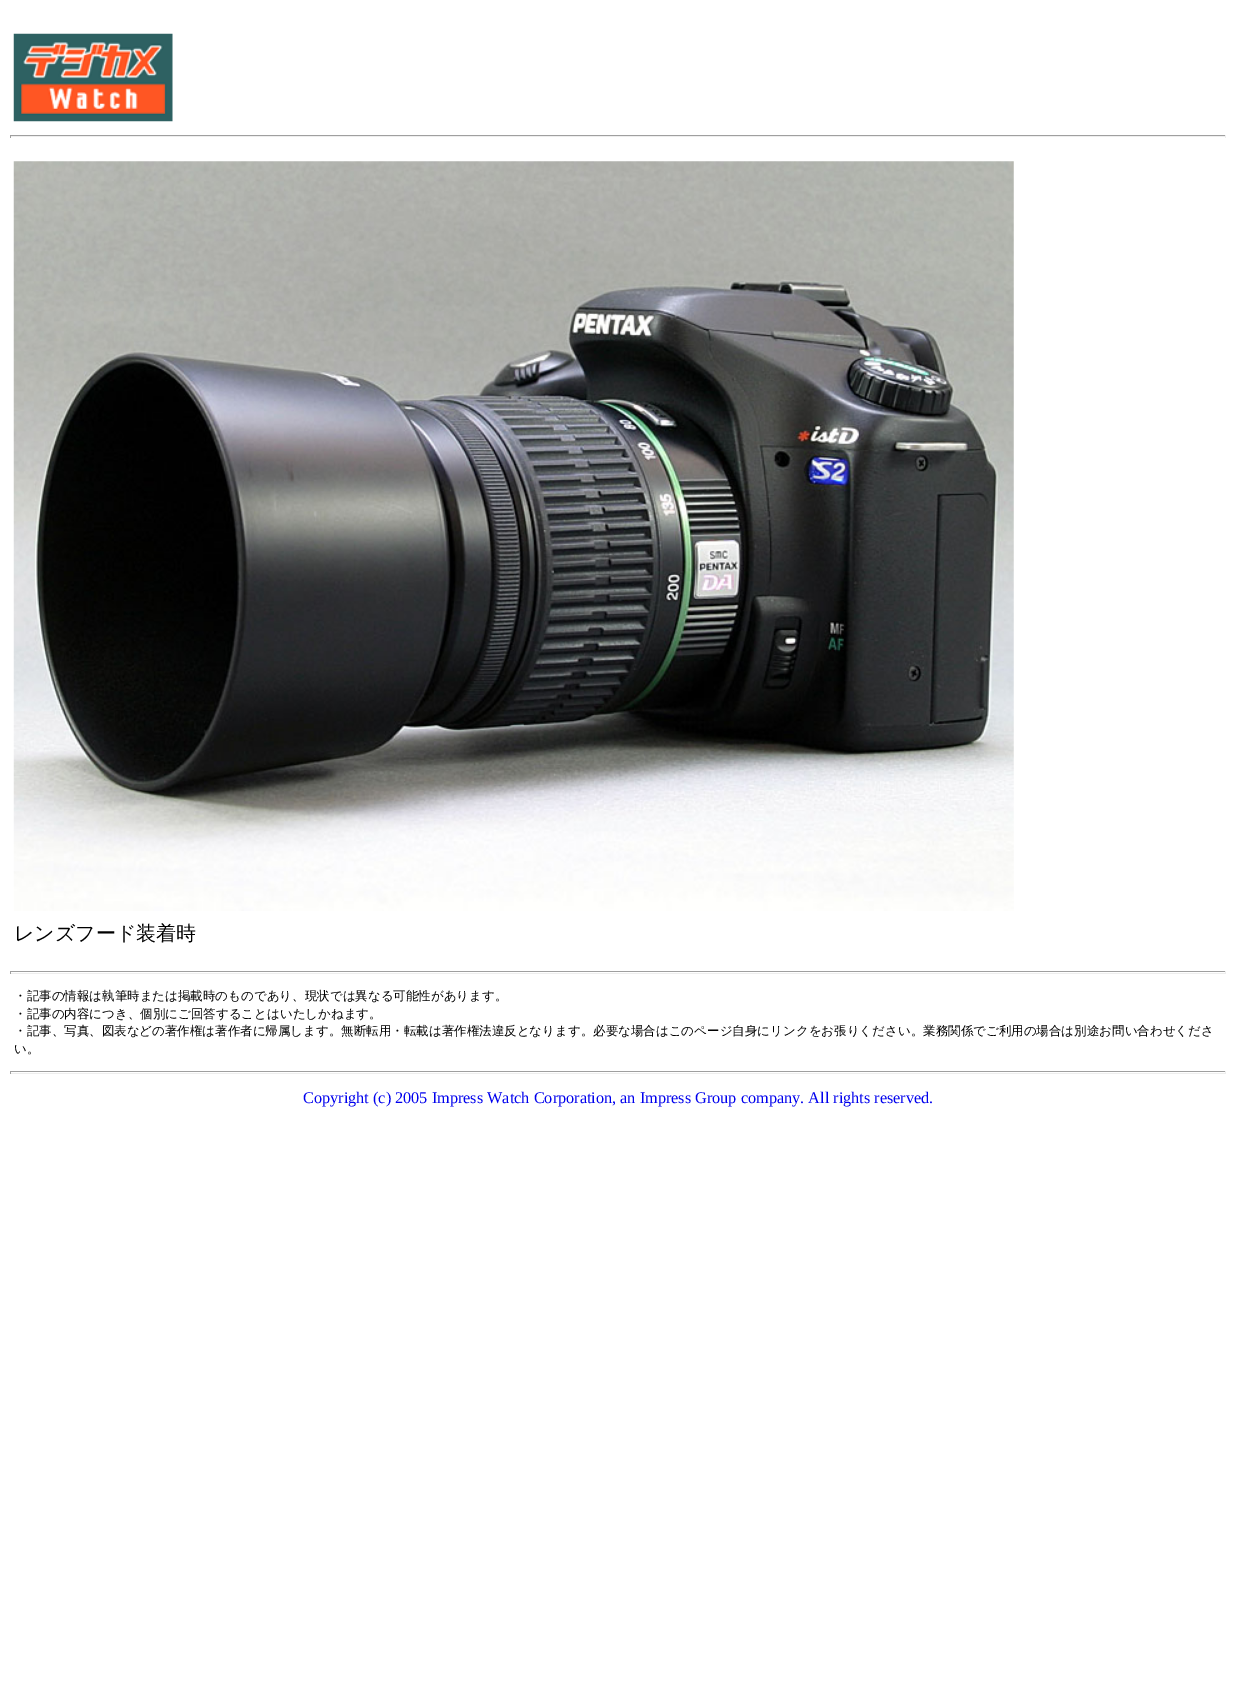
%!PS
<< /PageSize [1236 1708] >> setpagedevice
/C { dup -16 bitshift 255 div exch dup -8 bitshift 255 and 255 div exch 255 and 255 div setrgbcolor } def
/F { [ exch dup neg 0 0 3 -1 roll 0 0 ] selectfont } def
/T { moveto show } def
/R { rectfill } def
/I { 5 dict begin { /h /w /y /x /name } { exch def } forall
  gsave x y translate w h scale
  w h 8 [w 0 0 h 0 0] name (r) file false 3 colorimage grestore end } def
0 1708 translate 1 -1 scale
4 setmiterlimit
16#FFFFFF C
0 0 1236 1708 R
(1.rgb) 13 33 160 89 I
16#9F9F9F C
10 135 1216 1 R
16#EEEEEE C
1225 135 1 3 R
10 136 1216 1 R
16#9F9F9F C
10 135 1 3 R
(2.rgb) 13 161 1001 750 I
/WenQuanYiZenHei-Medium 20 F
16#000000 C
(レンズフード装着時) 14 940 T
16#9F9F9F C
10 971 1216 1 R
16#EEEEEE C
1225 971 1 3 R
10 973 1216 1 R
16#9F9F9F C
10 971 1 3 R
/WenQuanYiZenHei-Medium 12.5 F
16#000000 C
(・記事の情報は執筆時または掲載時のものであり、現状では異なる可能性があります。) 14 1000 T
(・記事の内容につき、個別にご回答することはいたしかねます。) 14 1018 T
(・記事、写真、図表などの著作権は著作者に帰属します。無断転用・転載は著作権法違反となります。必要な場合はこのページ自身にリンクをお張りください。業務関係でご利用の場合は別途お問い合わせくださ) 14 1035 T
(い。) 14 1053 T
16#9F9F9F C
10 1071 1216 1 R
16#EEEEEE C
1225 1071 1 3 R
10 1073 1216 1 R
16#9F9F9F C
10 1071 1 3 R
/LiberationSerif-Regular 16.25 F
16#0000EE C
(Copyright \(c\) 2005 Impress Watch Corporation, an Impress Group company. All rights reserved.) 303 1103 T
showpage
